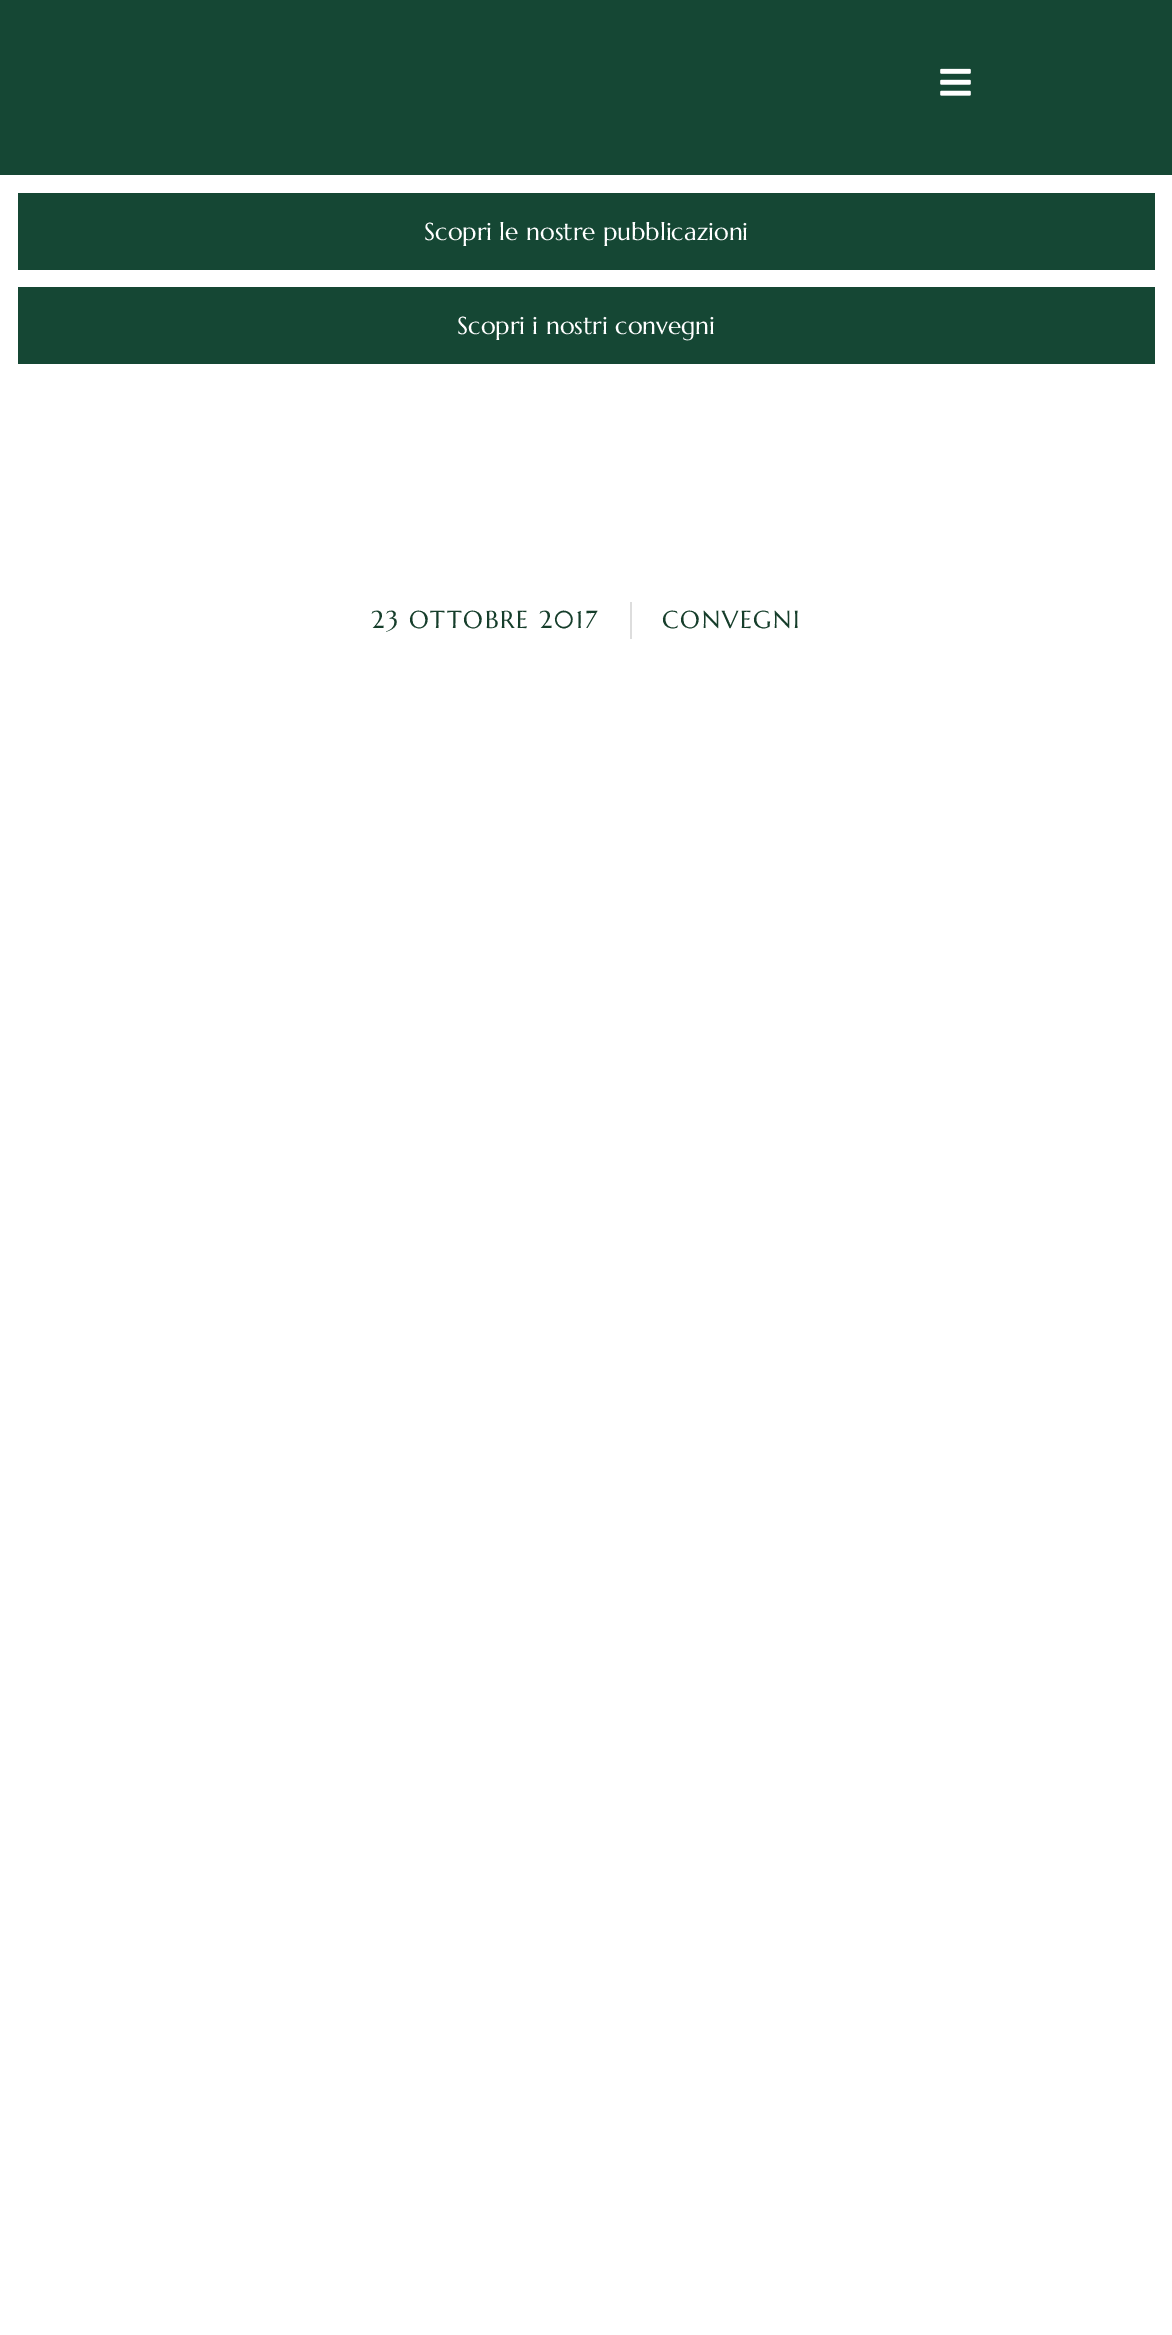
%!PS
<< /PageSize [1172 2335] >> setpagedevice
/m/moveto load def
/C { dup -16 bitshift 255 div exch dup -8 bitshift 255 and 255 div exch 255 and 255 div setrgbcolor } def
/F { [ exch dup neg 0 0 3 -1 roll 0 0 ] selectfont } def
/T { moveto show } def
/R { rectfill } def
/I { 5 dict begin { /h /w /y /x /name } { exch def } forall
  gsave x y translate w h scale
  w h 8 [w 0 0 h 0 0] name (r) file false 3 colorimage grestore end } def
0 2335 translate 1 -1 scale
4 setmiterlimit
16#FFFFFF C
0 0 1172 2335 R
16#154734 C
0 0 1172 175 R
(1.rgb) 940 68 31 28 I
18 193 1137 77 R
/Marcellus-Regular 24.5 F
16#FFFFFF C
(Scopri le nostre pubblicazioni) 424 240 T
16#154734 C
18 287 1137 77 R
16#FFFFFF C
(Scopri i nostri convegni) 457 334 T
16#163E2B C
371 628 m 1.75 0 (23 OTTOBRE 2017) ashow
16#DDDDDD C
630 602 2 37 R
16#163E2B C
662 628 m 1.75 0 (CONVEGNI) ashow
showpage
